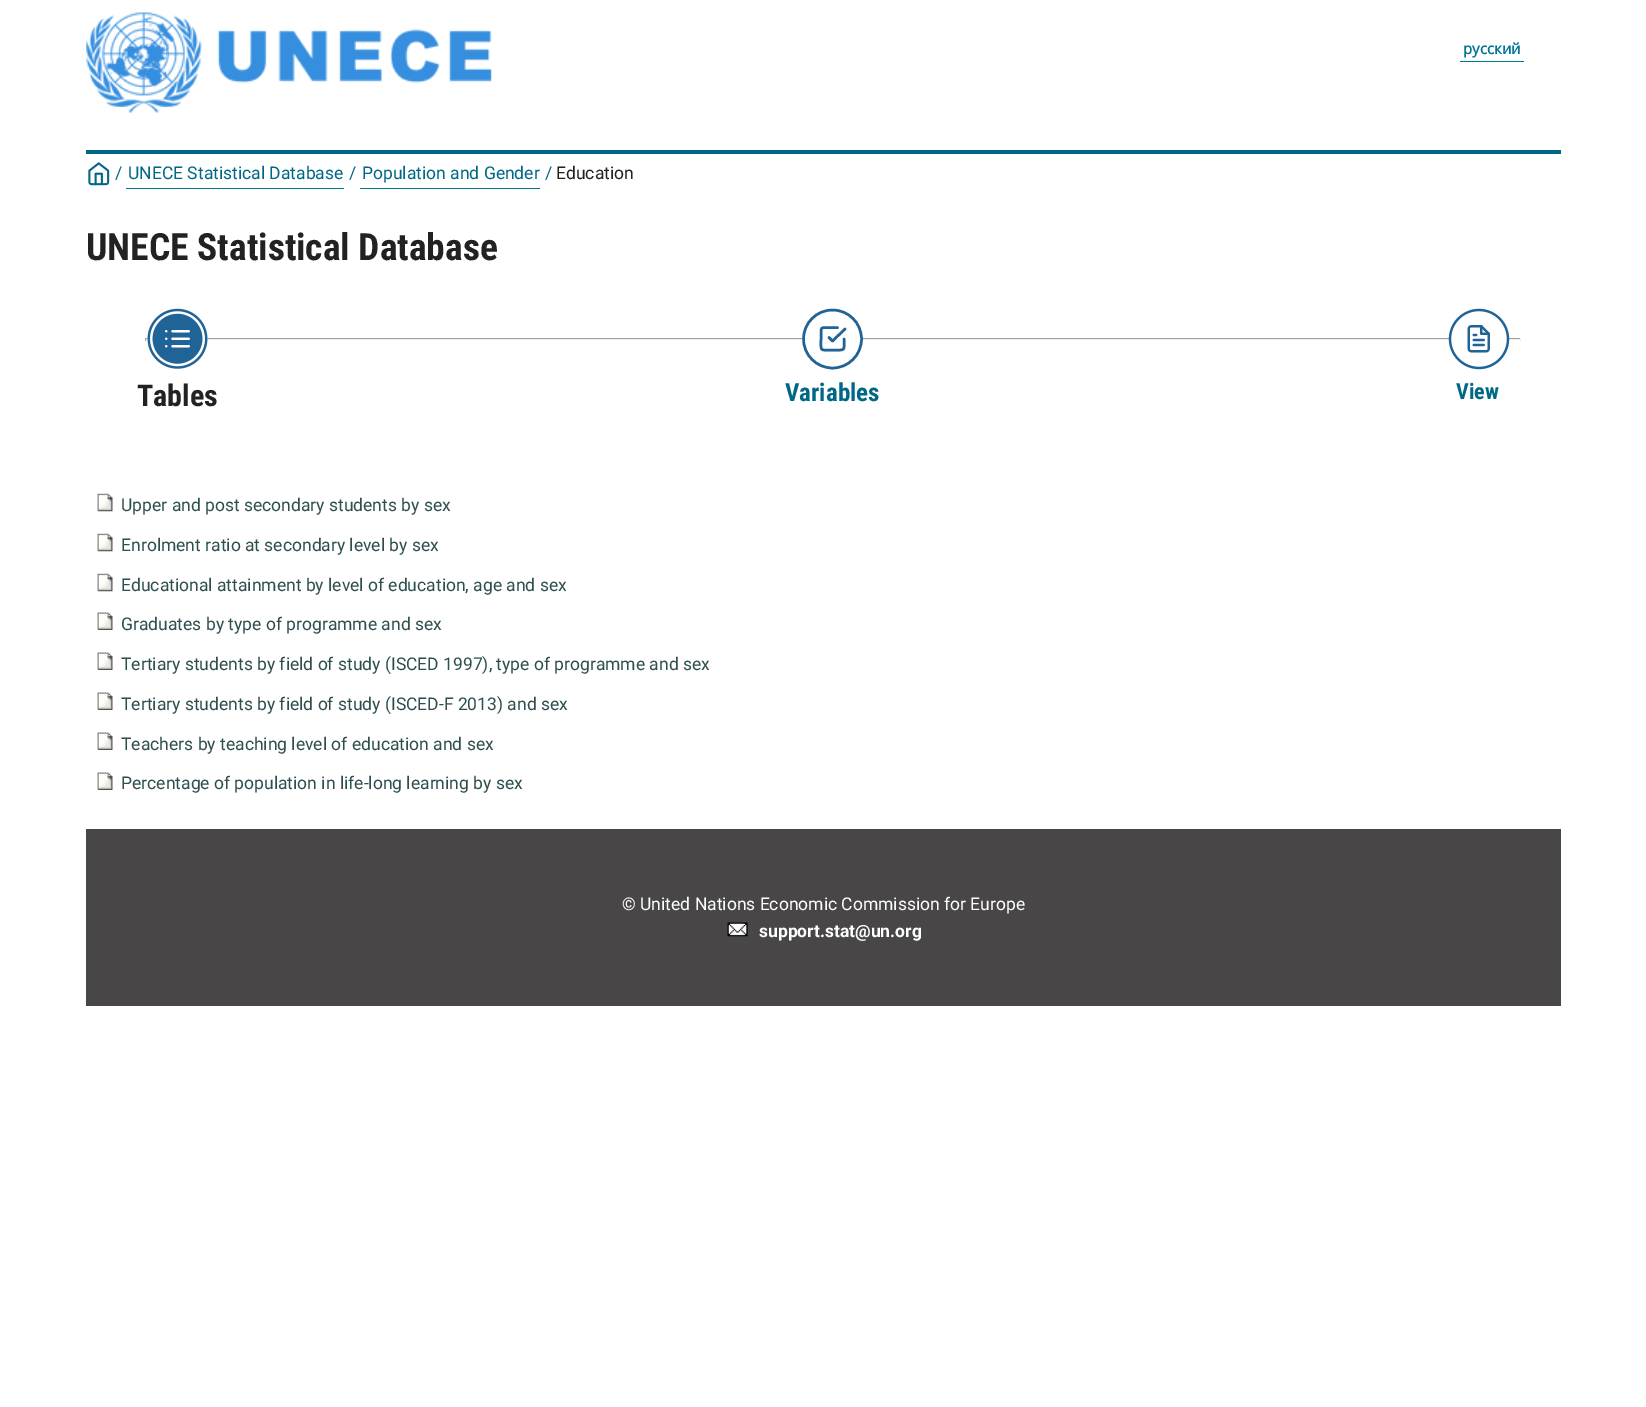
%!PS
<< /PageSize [1646 1407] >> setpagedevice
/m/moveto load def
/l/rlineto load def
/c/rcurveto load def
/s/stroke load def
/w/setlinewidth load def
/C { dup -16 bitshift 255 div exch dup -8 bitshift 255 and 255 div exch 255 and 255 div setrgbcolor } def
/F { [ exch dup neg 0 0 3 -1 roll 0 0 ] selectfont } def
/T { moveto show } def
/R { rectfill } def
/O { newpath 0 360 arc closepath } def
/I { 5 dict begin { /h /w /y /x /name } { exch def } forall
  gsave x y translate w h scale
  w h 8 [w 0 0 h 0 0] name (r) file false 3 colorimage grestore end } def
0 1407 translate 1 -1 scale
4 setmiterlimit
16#FFFFFF C
0 0 1646 1407 R
(1.rgb) 86 12 406 101 I
16#007694 C
1460 61 64 1 R
/OpenSans-Bold 15 F
(русский) 1463 54 T
16#006885 C
86 150 1475 4 R
(2.rgb) 88 162 22 24 I
/Roboto-Regular 17.5 F
(/) 115 179 T
16#007694 C
126 188 218 1 R
16#006885 C
(UNECE Statistical Database) 128 179 T
(/) 349 179 T
16#007694 C
360 188 180 1 R
16#006885 C
(Population and Gender) 362 179 T
(/) 545 179 T
16#222222 C
(Education) 556 179 T
/RobotoCondensed-Bold 37.5 F
(UNECE Statistical Database) 86 260 T
16#9F9F9F C
145 338 658 1 R
16#EEEEEE C
145 339 658 1 R
16#9F9F9F C
145 338 1 3 R
862 338 659 1 R
16#EEEEEE C
1520 338 1 3 R
862 339 659 1 R
(3.rgb) 147 308 61 61 I
/RobotoCondensed-Bold 30 F
16#222222 C
(Tables) 137 406 T
16#206396 C
2.5 w
832.5 339 29 O s
1 setlinecap
1 setlinejoin
829 337.5 m 3.5 3.5 l 12.5 -12 l 844 339 m 0 12.5 2 11 -11.5 11 c -13 0 -11.5 2 -11.5 -11 c 0 -6 l 0 -5 0 -5.5 5 -5.5 c 11.5 0 l s
/RobotoCondensed-Bold 25 F
16#006885 C
(Variables) 785 401 T
(4.rgb) 1448 308 62 62 I
/RobotoCondensed-Bold 22 F
(View) 1456 399 T
(5.rgb) 97 493 16 19 I
/Roboto-Regular 17.5 F
16#2F4F4F C
(Upper and post secondary students by sex) 121 511 T
(5.rgb) 97 533 16 19 I
(Enrolment ratio at secondary level by sex) 121 551 T
(5.rgb) 97 573 16 19 I
(Educational attainment by level of education, age and sex) 121 591 T
(6.rgb) 97 612 16 18 I
(Graduates by type of programme and sex) 121 630 T
(6.rgb) 97 652 16 18 I
(Tertiary students by field of study \(ISCED 1997\), type of programme and sex) 121 670 T
(6.rgb) 97 692 16 18 I
(Tertiary students by field of study \(ISCED-F 2013\) and sex) 121 710 T
(6.rgb) 97 732 16 18 I
(Teachers by teaching level of education and sex) 121 750 T
(7.rgb) 97 772 16 18 I
(Percentage of population in life-long learning by sex) 121 789 T
16#484646 C
86 829 1475 177 R
16#FFFFFF C
(© United Nations Economic Commission for Europe) 622 910 T
(8.rgb) 727 922 21 15 I
/Roboto-Bold 17.5 F
(support.stat@un.org) 759 937 T
showpage
